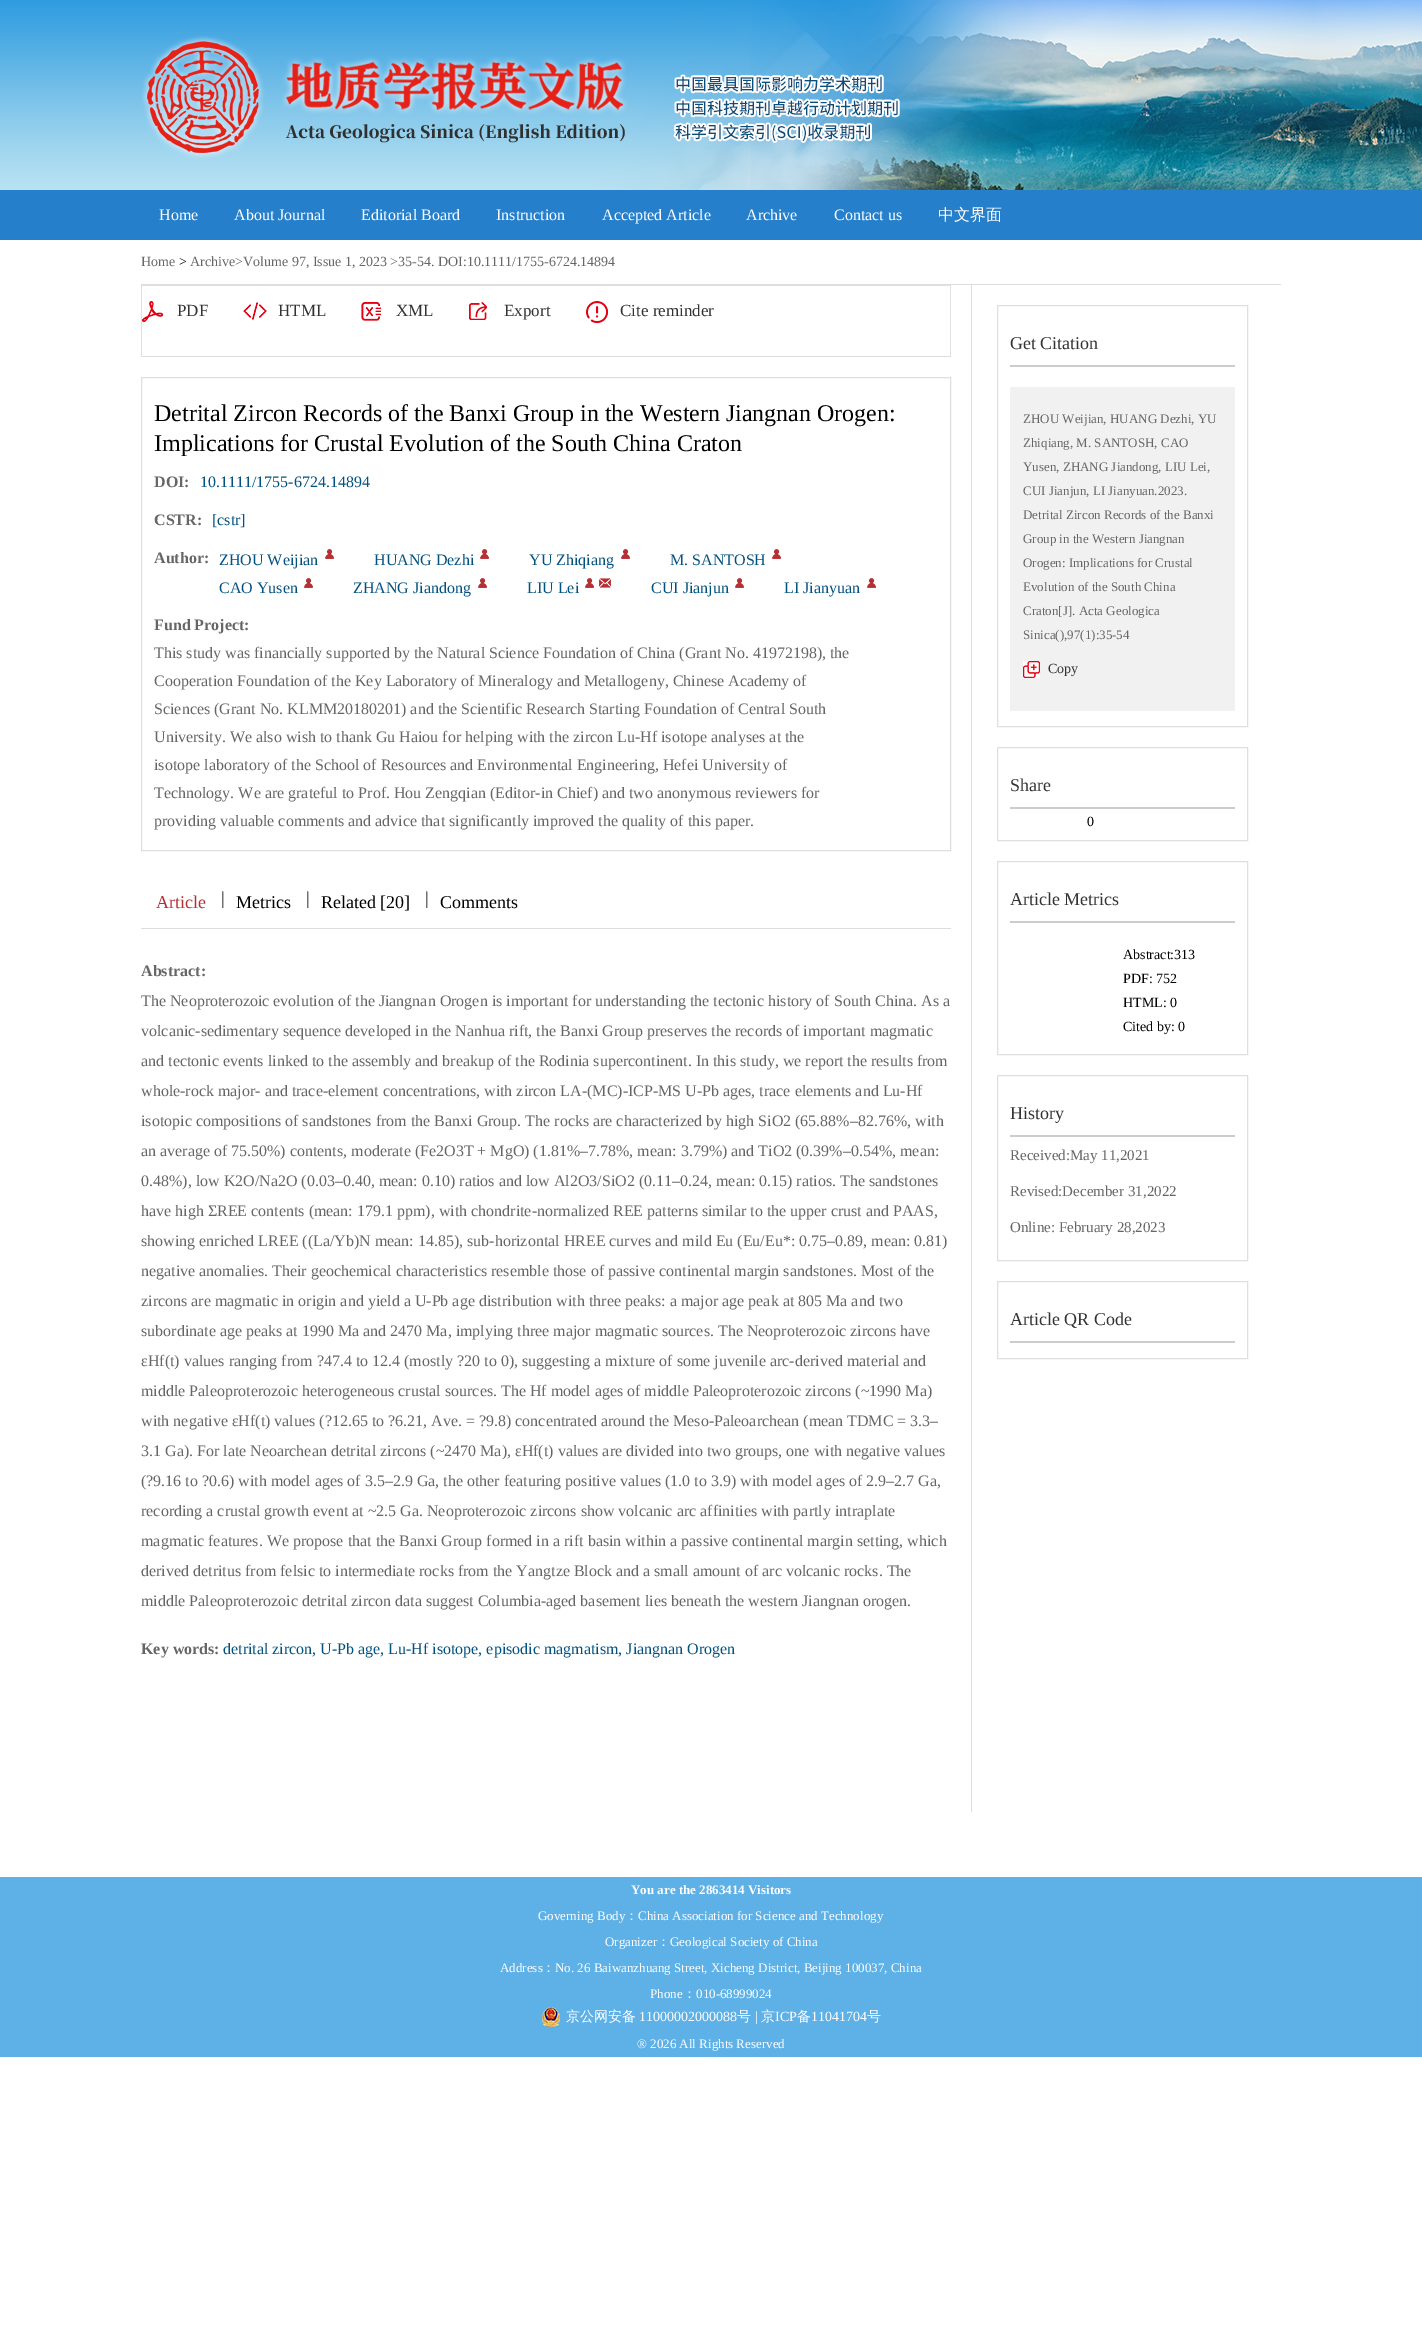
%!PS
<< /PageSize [1422 2336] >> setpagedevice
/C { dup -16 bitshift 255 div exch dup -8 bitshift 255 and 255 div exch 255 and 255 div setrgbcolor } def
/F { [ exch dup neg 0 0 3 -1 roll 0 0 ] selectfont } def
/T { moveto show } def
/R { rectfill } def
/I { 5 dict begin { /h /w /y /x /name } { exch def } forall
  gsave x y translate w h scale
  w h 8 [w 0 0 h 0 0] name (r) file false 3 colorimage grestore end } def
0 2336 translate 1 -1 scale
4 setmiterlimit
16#FFFFFF C
0 0 1422 2336 R
(1.rgb) 0 0 1422 190 I
16#257FCA C
0 190 1422 50 R
/LiberationSerif-Regular 16 F
16#FFFFFF C
(Home) 159 220 T
(About Journal) 234 220 T
(Editorial Board) 361 220 T
(Instruction) 496 220 T
(Accepted Article) 602 220 T
(Archive) 746 220 T
(Contact us) 834 220 T
/WenQuanYiZenHei-Medium 16 F
(中文界面) 938 220 T
16#DDDDDD C
141 284 1140 1 R
/LiberationSerif-Regular 14 F
16#666666 C
(Home) 141 266 T
16#000000 C
(>) 179 266 T
16#666666 C
(Archive>Volume 97, Issue 1, 2023 >35-54. DOI:10.1111/1755-6724.14894) 190 266 T
16#DFDFDF C
141 285 810 1 R
950 285 1 72 R
16#DDDDDD C
141 356 810 1 R
16#DFDFDF C
141 285 1 72 R
(2.rgb) 142 301 21 21 I
/LiberationSerif-Regular 17 F
16#333333 C
(PDF) 177 316 T
(3.rgb) 243 302 24 18 I
(HTML) 278 316 T
(4.rgb) 361 302 20 19 I
(XML) 396 316 T
(5.rgb) 469 302 18 18 I
(Export) 504 316 T
(6.rgb) 586 301 22 22 I
(Cite reminder) 620 316 T
16#DFDFDF C
141.5 377.5 809 473 rectstroke
/LiberationSerif-Regular 24 F
16#000000 C
(Detrital Zircon Records of the Banxi Group in the Western Jiangnan Orogen:) 154 421 T
(Implications for Crustal Evolution of the South China Craton) 154 451 T
/LiberationSerif-Bold 16 F
16#666666 C
(DOI:) 154 487 T
/LiberationSerif-Regular 16 F
16#01527F C
(10.1111/1755-6724.14894) 200 487 T
/LiberationSerif-Bold 16 F
16#666666 C
(CSTR:) 154 525 T
/LiberationSerif-Regular 16 F
16#01527F C
([cstr]) 212 525 T
/LiberationSerif-Bold 16 F
16#666666 C
(Author:) 154 563 T
/LiberationSerif-Regular 16 F
16#01527F C
(ZHOU Weijian) 219 565 T
(7.rgb) 325 549 9 10 I
(HUANG Dezhi) 374 565 T
(7.rgb) 480 549 9 10 I
(YU Zhiqiang) 529 565 T
(7.rgb) 621 549 9 10 I
(M. SANTOSH) 670 565 T
(7.rgb) 772 549 9 10 I
(CAO Yusen) 219 593 T
(7.rgb) 304 578 9 10 I
(ZHANG Jiandong) 353 593 T
(7.rgb) 478 578 9 10 I
(LIU Lei) 527 593 T
(7.rgb) 585 578 9 10 I
(8.rgb) 599 578 12 10 I
(CUI Jianjun) 651 593 T
(7.rgb) 735 578 9 10 I
(LI Jianyuan) 784 593 T
(7.rgb) 867 578 9 10 I
/LiberationSerif-Bold 16 F
16#666666 C
(Fund Project:) 154 630 T
/LiberationSerif-Regular 16 F
(This study was financially supported by the Natural Science Foundation of China \(Grant No. 41972198\), the) 154 658 T
(Cooperation Foundation of the Key Laboratory of Mineralogy and Metallogeny, Chinese Academy of) 154 686 T
(Sciences \(Grant No. KLMM20180201\) and the Scientific Research Starting Foundation of Central South) 154 714 T
(University. We also wish to thank Gu Haiou for helping with the zircon Lu-Hf isotope analyses at the) 154 742 T
(isotope laboratory of the School of Resources and Environmental Engineering, Hefei University of) 154 770 T
(Technology. We are grateful to Prof. Hou Zengqian \(Editor-in Chief\) and two anonymous reviewers for) 154 798 T
(providing valuable comments and advice that significantly improved the quality of this paper.) 154 826 T
16#DDDDDD C
141 928 810 1 R
/LiberationSerif-Regular 18 F
16#666666 C
(|) 221 904 T
(|) 221 904 T
(|) 306 904 T
(|) 306 904 T
(|) 425 904 T
16#B53035 C
(Article) 156 908 T
16#000000 C
(Metrics) 236 908 T
(Related [20]) 321 908 T
16#666666 C
(|) 425 904 T
16#000000 C
(Comments) 440 908 T
/LiberationSerif-Bold 16 F
16#666666 C
(Abstract:) 141 976 T
/LiberationSerif-Regular 16 F
(The Neoproterozoic evolution of the Jiangnan Orogen is important for understanding the tectonic history of South China. As a) 141 1006 T
(volcanic-sedimentary sequence developed in the Nanhua rift, the Banxi Group preserves the records of important magmatic) 141 1036 T
(and tectonic events linked to the assembly and breakup of the Rodinia supercontinent. In this study, we report the results from) 141 1066 T
(whole-rock major- and trace-element concentrations, with zircon LA-\(MC\)-ICP-MS U-Pb ages, trace elements and Lu-Hf) 141 1096 T
(isotopic compositions of sandstones from the Banxi Group. The rocks are characterized by high SiO2 \(65.88%–82.76%, with) 141 1126 T
(an average of 75.50%\) contents, moderate \(Fe2O3T + MgO\) \(1.81%–7.78%, mean: 3.79%\) and TiO2 \(0.39%–0.54%, mean:) 141 1156 T
(0.48%\), low K2O/Na2O \(0.03–0.40, mean: 0.10\) ratios and low Al2O3/SiO2 \(0.11–0.24, mean: 0.15\) ratios. The sandstones) 141 1186 T
(have high ΣREE contents \(mean: 179.1 ppm\), with chondrite-normalized REE patterns similar to the upper crust and PAAS,) 141 1216 T
(showing enriched LREE \(\(La/Yb\)N mean: 14.85\), sub-horizontal HREE curves and mild Eu \(Eu/Eu*: 0.75–0.89, mean: 0.81\)) 141 1246 T
(negative anomalies. Their geochemical characteristics resemble those of passive continental margin sandstones. Most of the) 141 1276 T
(zircons are magmatic in origin and yield a U-Pb age distribution with three peaks: a major age peak at 805 Ma and two) 141 1306 T
(subordinate age peaks at 1990 Ma and 2470 Ma, implying three major magmatic sources. The Neoproterozoic zircons have) 141 1336 T
(εHf\(t\) values ranging from ?47.4 to 12.4 \(mostly ?20 to 0\), suggesting a mixture of some juvenile arc-derived material and) 141 1366 T
(middle Paleoproterozoic heterogeneous crustal sources. The Hf model ages of middle Paleoproterozoic zircons \(~1990 Ma\)) 141 1396 T
(with negative εHf\(t\) values \(?12.65 to ?6.21, Ave. = ?9.8\) concentrated around the Meso-Paleoarchean \(mean TDMC = 3.3–) 141 1426 T
(3.1 Ga\). For late Neoarchean detrital zircons \(~2470 Ma\), εHf\(t\) values are divided into two groups, one with negative values) 141 1456 T
(\(?9.16 to ?0.6\) with model ages of 3.5–2.9 Ga, the other featuring positive values \(1.0 to 3.9\) with model ages of 2.9–2.7 Ga,) 141 1486 T
(recording a crustal growth event at ~2.5 Ga. Neoproterozoic zircons show volcanic arc affinities with partly intraplate) 141 1516 T
(magmatic features. We propose that the Banxi Group formed in a rift basin within a passive continental margin setting, which) 141 1546 T
(derived detritus from felsic to intermediate rocks from the Yangtze Block and a small amount of arc volcanic rocks. The) 141 1576 T
(middle Paleoproterozoic detrital zircon data suggest Columbia-aged basement lies beneath the western Jiangnan orogen.) 141 1606 T
/LiberationSerif-Bold 16 F
(Key words:) 141 1654 T
/LiberationSerif-Regular 16 F
16#01527F C
(detrital zircon, U-Pb age, Lu-Hf isotope, episodic magmatism, Jiangnan Orogen) 223 1654 T
16#DDDDDD C
971 285 1 1527 R
16#DFDFDF C
997.5 305.5 250 421 rectstroke
16#CCCCCC C
1010 365 225 2 R
/LiberationSerif-Regular 18 F
16#333333 C
(Get Citation) 1010 349 T
16#F1F1F1 C
1010 387 225 324 R
/LiberationSerif-Regular 13 F
16#666666 C
(ZHOU Weijian, HUANG Dezhi, YU) 1023 423 T
(Zhiqiang, M. SANTOSH, CAO) 1023 447 T
(Yusen, ZHANG Jiandong, LIU Lei,) 1023 471 T
(CUI Jianjun, LI Jianyuan.2023.) 1023 495 T
(Detrital Zircon Records of the Banxi) 1023 519 T
(Group in the Western Jiangnan) 1023 543 T
(Orogen: Implications for Crustal) 1023 567 T
(Evolution of the South China) 1023 591 T
(Craton[J]. Acta Geologica) 1023 615 T
(Sinica\(\),97\(1\):35-54) 1023 639 T
(9.rgb) 1023 661 17 17 I
/LiberationSerif-Regular 14 F
16#333333 C
(Copy) 1048 673 T
16#DFDFDF C
997.5 747.5 250 93 rectstroke
16#CCCCCC C
1010 807 225 2 R
/LiberationSerif-Regular 18 F
16#333333 C
(Share) 1010 791 T
/LiberationSerif-Regular 14 F
16#000000 C
(0) 1087 826 T
16#DFDFDF C
997.5 861.5 250 193 rectstroke
16#CCCCCC C
1010 921 225 2 R
/LiberationSerif-Regular 18 F
16#333333 C
(Article Metrics) 1010 905 T
/LiberationSerif-Regular 14 F
16#000000 C
(Abstract:313) 1123 959 T
(PDF: 752) 1123 983 T
(HTML: 0) 1123 1007 T
(Cited by: 0) 1123 1031 T
16#DFDFDF C
997.5 1075.5 250 185 rectstroke
16#CCCCCC C
1010 1135 225 2 R
/LiberationSerif-Regular 18 F
16#333333 C
(History) 1010 1119 T
/LiberationSerif-Regular 15 F
16#666666 C
(Received:May 11,2021) 1010 1160 T
(Revised:December 31,2022) 1010 1196 T
(Online: February 28,2023) 1010 1232 T
16#DFDFDF C
997.5 1281.5 250 77 rectstroke
16#CCCCCC C
1010 1341 225 2 R
/LiberationSerif-Regular 18 F
16#333333 C
(Article QR Code) 1010 1325 T
16#5EB1E6 C
0 1877 1422 180 R
/LiberationSerif-Bold 13 F
16#FFFFFF C
(You are the 2863414 Visitors) 631 1894 T
/LiberationSerif-Regular 13 F
(Governing Body) 538 1920 T
/WenQuanYiZenHei-Medium 13 F
(：) 625 1920 T
/LiberationSerif-Regular 13 F
(China Association for Science and Technology) 638 1920 T
(Organizer) 605 1946 T
/WenQuanYiZenHei-Medium 13 F
(：) 657 1946 T
/LiberationSerif-Regular 13 F
(Geological Society of China) 670 1946 T
(Address) 500 1972 T
/WenQuanYiZenHei-Medium 13 F
(：) 542 1972 T
/LiberationSerif-Regular 13 F
(No. 26 Baiwanzhuang Street, Xicheng District, Beijing 100037, China) 555 1972 T
(Phone) 650 1998 T
/WenQuanYiZenHei-Medium 13 F
(：) 683 1998 T
/LiberationSerif-Regular 13 F
(010-68999024) 696 1998 T
(10.rgb) 542 2007 18 20 I
/WenQuanYiZenHei-Medium 14 F
(京公网安备) 566 2021 T
/LiberationSerif-Regular 14 F
(11000002000088) 639 2021 T
/WenQuanYiZenHei-Medium 14 F
(号) 737 2021 T
/LiberationSerif-Regular 14 F
(|) 755 2021 T
/WenQuanYiZenHei-Medium 14 F
(京) 761 2021 T
/LiberationSerif-Regular 14 F
(ICP) 775 2021 T
/WenQuanYiZenHei-Medium 14 F
(备) 797 2021 T
/LiberationSerif-Regular 14 F
(11041704) 811 2021 T
/WenQuanYiZenHei-Medium 14 F
(号) 867 2021 T
/LiberationSerif-Regular 13 F
(® 2026 All Rights Reserved) 637 2048 T
showpage
